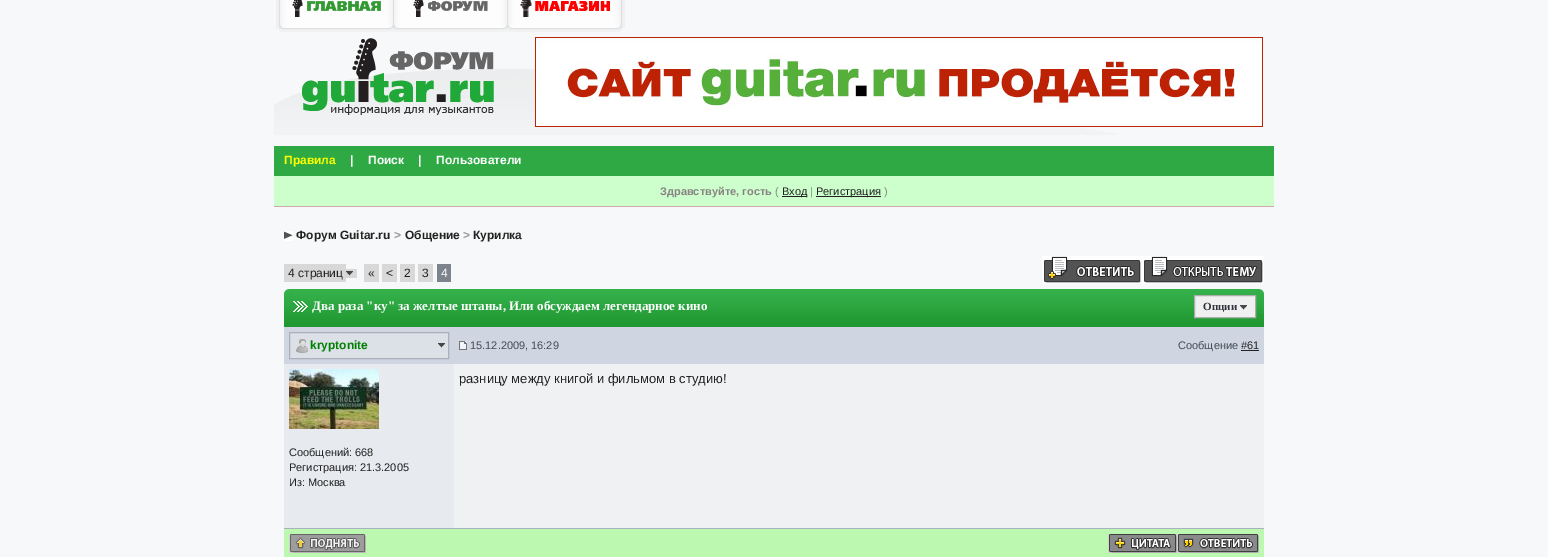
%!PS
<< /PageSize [1548 557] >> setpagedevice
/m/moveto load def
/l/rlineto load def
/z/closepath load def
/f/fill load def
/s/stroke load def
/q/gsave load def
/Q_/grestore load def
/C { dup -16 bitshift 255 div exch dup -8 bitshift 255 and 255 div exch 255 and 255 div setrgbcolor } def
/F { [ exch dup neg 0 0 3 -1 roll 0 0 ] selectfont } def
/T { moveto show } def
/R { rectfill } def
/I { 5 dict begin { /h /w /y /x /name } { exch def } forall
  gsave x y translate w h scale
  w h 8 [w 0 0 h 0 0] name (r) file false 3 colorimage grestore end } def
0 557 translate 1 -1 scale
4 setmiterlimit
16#F7F8F9 C
0 0 1548 557 R
(1.rgb) 274 69 843 66 I
16#EFF0F1 C
276 0 3 29 R
(2.rgb) 279 0 1 31 I
(3.rgb) 280 0 113 32 I
(4.rgb) 292 0 89 17 I
(2.rgb) 393 0 1 31 I
(3.rgb) 394 0 113 32 I
(5.rgb) 413 0 75 17 I
(2.rgb) 507 0 1 31 I
(3.rgb) 508 0 113 32 I
(6.rgb) 520 0 90 17 I
(2.rgb) 621 0 1 31 I
622 0 3 28 R
(7.rgb) 302 38 192 77 I
(8.rgb) 535 37 728 90 I
16#2EA943 C
274 146 1000 30 R
/LiberationSans-Bold 12 F
16#FFFF00 C
(Правила) 284 164 T
16#FFFFFF C
(|) 350 164 T
(Поиск) 368 164 T
(|) 418 164 T
(Пользователи) 436 164 T
16#CCFFCC C
274 176 1000 30 R
16#D1A9A9 C
274 206 1000 1 R
/LiberationSans-Bold 11 F
16#898284 C
(Здравствуйте, гость) 660 195 T
/LiberationSans-Regular 11 F
(\() 775 195 T
16#222222 C
782 196 25 1 R
(Вход) 782 195 T
16#898284 C
(|) 810 195 T
16#222222 C
816 196 65 1 R
(Регистрация) 816 195 T
16#898284 C
(\)) 884 195 T
(9.rgb) 284 231 9 10 I
/LiberationSans-Bold 12 F
16#222222 C
(Форум Guitar.ru) 296 239 T
16#999999 C
(>) 394 239 T
16#222222 C
(Общение) 405 239 T
16#999999 C
(>) 463 239 T
16#222222 C
(Курилка) 473 239 T
16#D8D8D8 C
284 264 62 18 R
/LiberationSans-Regular 12 F
16#222222 C
(4 страниц) 288 277 T
16#D8D8D8 C
346 269 11 9 R
(10.rgb) 346 271 7 5 I
364 264 15 18 R
16#222222 C
(«) 368 277 T
16#D8D8D8 C
382 264 15 18 R
16#222222 C
(<) 386 277 T
16#D8D8D8 C
400 264 15 18 R
16#222222 C
(2) 404 277 T
16#D8D8D8 C
418 264 15 18 R
16#222222 C
(3) 422 277 T
16#7D838C C
437 264 14 18 R
16#FFFFFF C
(4) 441 277 T
(11.rgb) 1042 256 100 28 I
(12.rgb) 1142 256 122 28 I
(13.rgb) 284 289 980 38 I
(14.rgb) 284 289 24 23 I
(15.rgb) 1259 289 5 5 I
/LiberationSerif-Bold 13 F
(Два раза "ку" за желтые штаны, Или обсуждаем легендарное кино) 312 310 T
16#F0F0F0 C
1194.5 295.5 m 61 0 l 0 22 l -61 0 l z q f Q_
16#ADADAD C
s
/LiberationSerif-Bold 11 F
16#30343B C
(Опции) 1203 310 T
(16.rgb) 1240 305 7 5 I
16#CFD6E1 C
284 327 980 37 R
16#DCE1E8 C
290 333 158 25 R
(17.rgb) 438 343 7 5 I
16#A9B0BB C
289.5 332.5 159 26 rectstroke
(18.rgb) 296 339 12 14 I
/LiberationSans-Bold 12 F
16#008000 C
(kryptonite) 310 349 T
(19.rgb) 459 341 8 9 I
/LiberationSans-Regular 11 F
16#464C55 C
(15.12.2009, 16:29) 470 349 T
(Сообщение) 1178 349 T
16#222222 C
(#61) 1241 349 T
1241 350 18 1 R
16#EFF1F3 C
454 364 810 164 R
/LiberationSans-Regular 13 F
16#222222 C
(разницу между книгой и фильмом в студию!) 459 383 T
16#E7EAEF C
284 364 170 164 R
(20.rgb) 289 369 90 60 I
/LiberationSans-Regular 11 F
16#222222 C
(Сообщений: 668) 289 456 T
(Регистрация: 21.3.2005) 289 471 T
(Из: Москва) 289 486 T
16#BCF8B0 C
284 529 980 28 R
16#A8B1BD C
284 528 980 1 R
(21.rgb) 289 534 77 19 I
(22.rgb) 1108 534 69 19 I
(23.rgb) 1177 534 82 19 I
showpage
